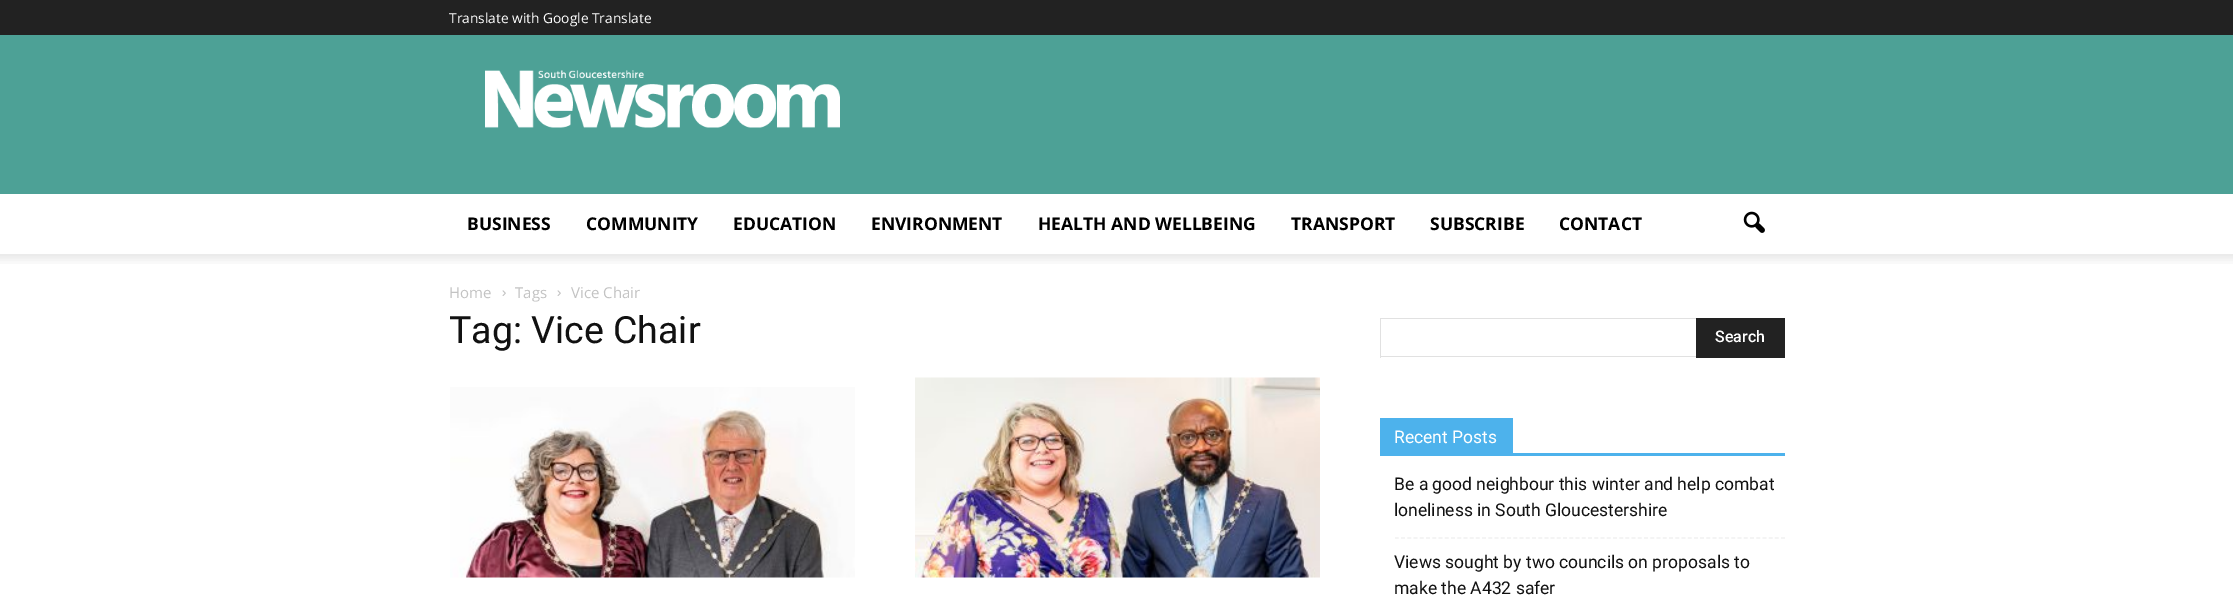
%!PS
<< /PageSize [2233 596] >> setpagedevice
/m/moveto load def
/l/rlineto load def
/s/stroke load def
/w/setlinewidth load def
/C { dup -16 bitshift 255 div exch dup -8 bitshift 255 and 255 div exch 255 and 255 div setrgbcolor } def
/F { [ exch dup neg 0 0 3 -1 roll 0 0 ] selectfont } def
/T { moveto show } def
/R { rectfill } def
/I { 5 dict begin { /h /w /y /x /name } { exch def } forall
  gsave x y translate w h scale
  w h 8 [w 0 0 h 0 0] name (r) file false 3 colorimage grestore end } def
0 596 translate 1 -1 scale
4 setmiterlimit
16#FFFFFF C
0 0 2233 596 R
16#222222 C
0 0 2233 35 R
/OpenSans-Regular 13.75 F
16#FFFFFF C
(Translate with Google Translate) 449 23 T
16#4DA196 C
0 35 2233 159 R
(1.rgb) 485 70 355 58 I
/OpenSans-Bold 17.5 F
16#000000 C
(BUSINESS) 467 230 T
(COMMUNITY) 586 230 T
(EDUCATION) 733 230 T
(ENVIRONMENT) 871 230 T
(HEALTH AND WELLBEING) 1038 230 T
(TRANSPORT) 1291 230 T
(SUBSCRIBE) 1430 230 T
(CONTACT) 1559 230 T
(2.rgb) 1743 211 22 22 I
(3.rgb) 0 254 2233 10 I
/OpenSans-Regular 15 F
16#C3C3C3 C
(Home) 449 298 T
(4.rgb) 502 290 4 6 I
(Tags) 515 298 T
(4.rgb) 557 290 4 6 I
(Vice Chair) 571 298 T
/Roboto-Regular 37.5 F
16#111111 C
(Tag: Vice Chair) 449 343 T
(5.rgb) 450 387 405 191 I
(6.rgb) 915 377 405 201 I
16#E1E1E1 C
1380 318 316 1 R
1380 356 316 1 R
1380 318 1 40 R
16#222222 C
1696 318 89 40 R
/Roboto-Medium 16 F
16#FFFFFF C
(Search) 1715 342 T
16#4DB2EC C
1380 453 405 3 R
1380 418 133 35 R
/Roboto-Regular 17.5 F
16#FFFFFF C
(Recent Posts) 1394 443 T
16#F1F1F1 C
1.2 w
[3.75 2.48] 0 setdash
1395 538 m 390 0 l s
16#111111 C
(Be a good neighbour this winter and help combat) 1394 490 T
(loneliness in South Gloucestershire) 1394 516 T
(Views sought by two councils on proposals to) 1394 568 T
(make the A432 safer) 1394 594 T
showpage
